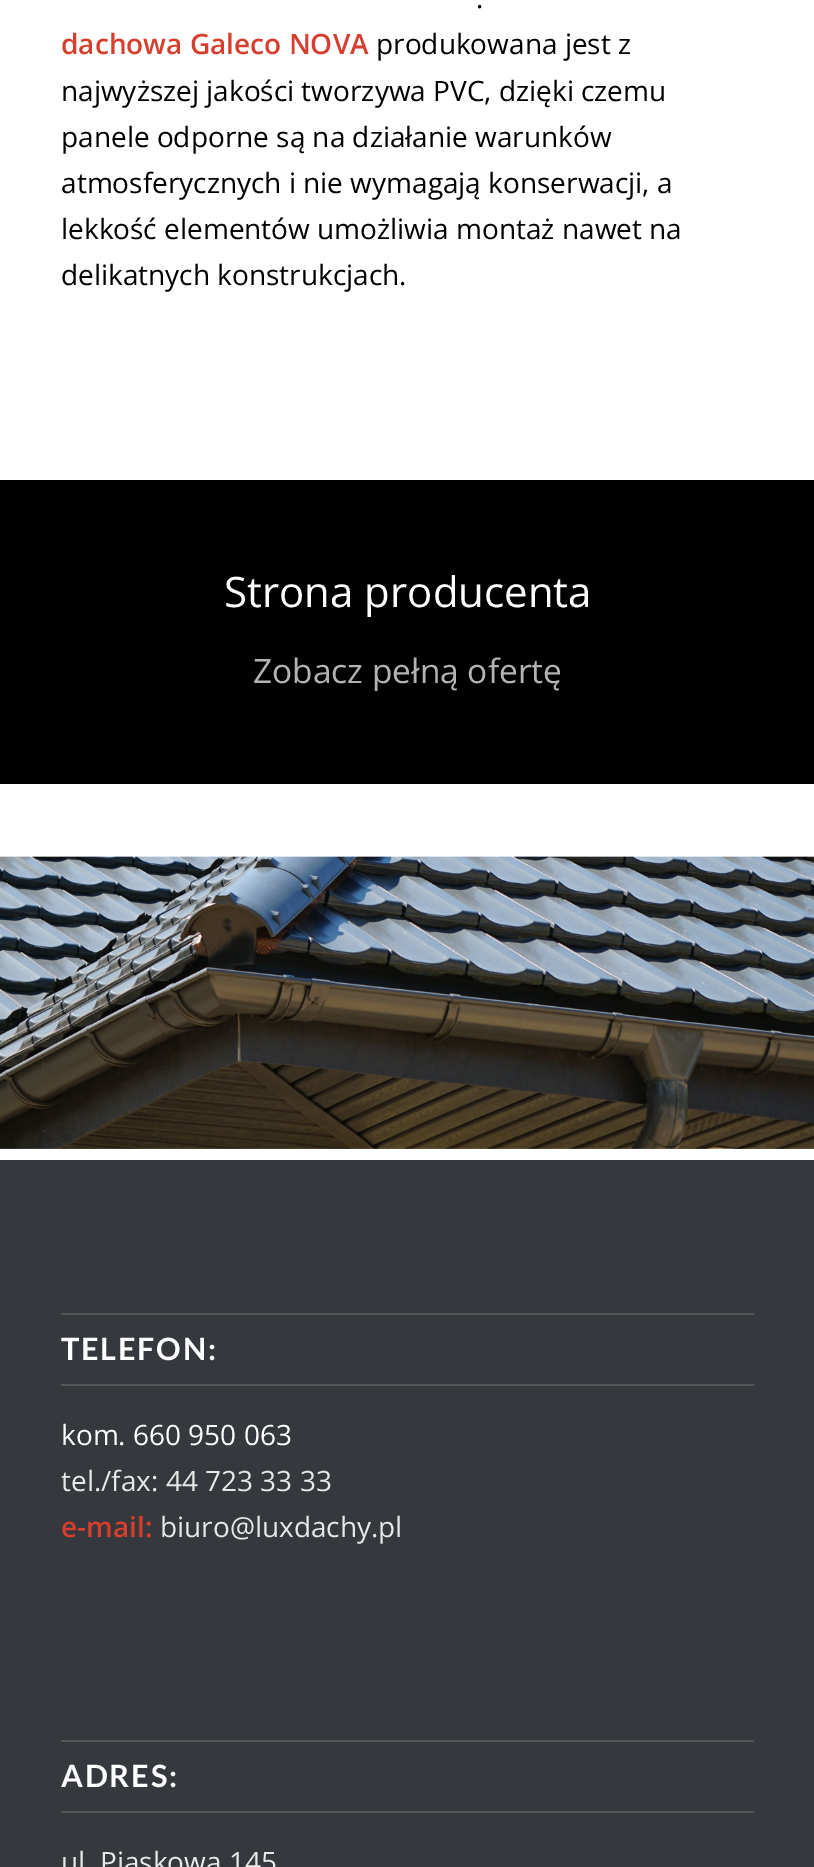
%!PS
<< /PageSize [814 1867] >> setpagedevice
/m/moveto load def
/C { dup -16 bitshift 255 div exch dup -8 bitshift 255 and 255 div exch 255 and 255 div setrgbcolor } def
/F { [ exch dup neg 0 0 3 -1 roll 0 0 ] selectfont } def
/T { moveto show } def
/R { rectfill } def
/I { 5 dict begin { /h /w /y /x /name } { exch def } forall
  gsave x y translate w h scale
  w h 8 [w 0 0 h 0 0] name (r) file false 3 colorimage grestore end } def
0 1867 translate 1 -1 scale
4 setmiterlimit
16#35383C C
0 0 814 1867 R
16#FFFFFF C
0 0 814 480 R
/OpenSans-Regular 28 F
16#000000 C
(.) 476 8 T
/OpenSans-SemiBold 28 F
16#D63E2D C
(dachowa Galeco NOVA) 61 54 T
/OpenSans-Regular 28 F
16#000000 C
(produkowana jest z) 376 54 T
(najwyższej jakości tworzywa PVC, dzięki czemu) 61 101 T
(panele odporne są na działanie warunków) 61 147 T
(atmosferycznych i nie wymagają konserwacji, a) 61 193 T
(lekkość elementów umożliwia montaż nawet na) 61 239 T
(delikatnych konstrukcjach.) 61 285 T
0 480 814 304 R
/OpenSans-Regular 42 F
16#FFFFFF C
(Strona producenta) 224 607 T
/OpenSans-Regular 33.5 F
16#B3B3B3 C
(Zobacz pełną ofertę) 253 683 T
16#FFFFFF C
0 784 814 376 R
(1.rgb) 0 856 814 293 I
16#555555 C
61 1313 693 2 R
61 1384 693 2 R
/Lato-Bold 30.75 F
16#FFFFFF C
61 1360 m 1.75 0 (TELEFON:) ashow
/OpenSans-Regular 28 F
(kom. 660 950 063) 61 1445 T
16#E8E8E8 C
(tel./fax: 44 723 33 33) 61 1491 T
/OpenSans-SemiBold 28 F
16#D63E2D C
(e-mail:) 61 1537 T
/OpenSans-Regular 28 F
16#E8E8E8 C
(biuro@luxdachy.pl) 160 1537 T
16#555555 C
61 1740 693 2 R
61 1811 693 2 R
/Lato-Bold 30.75 F
16#FFFFFF C
61 1787 m 1.75 0 (ADRES:) ashow
/OpenSans-Regular 28 F
16#E8E8E8 C
(ul. Piaskowa 145) 61 1872 T
showpage
